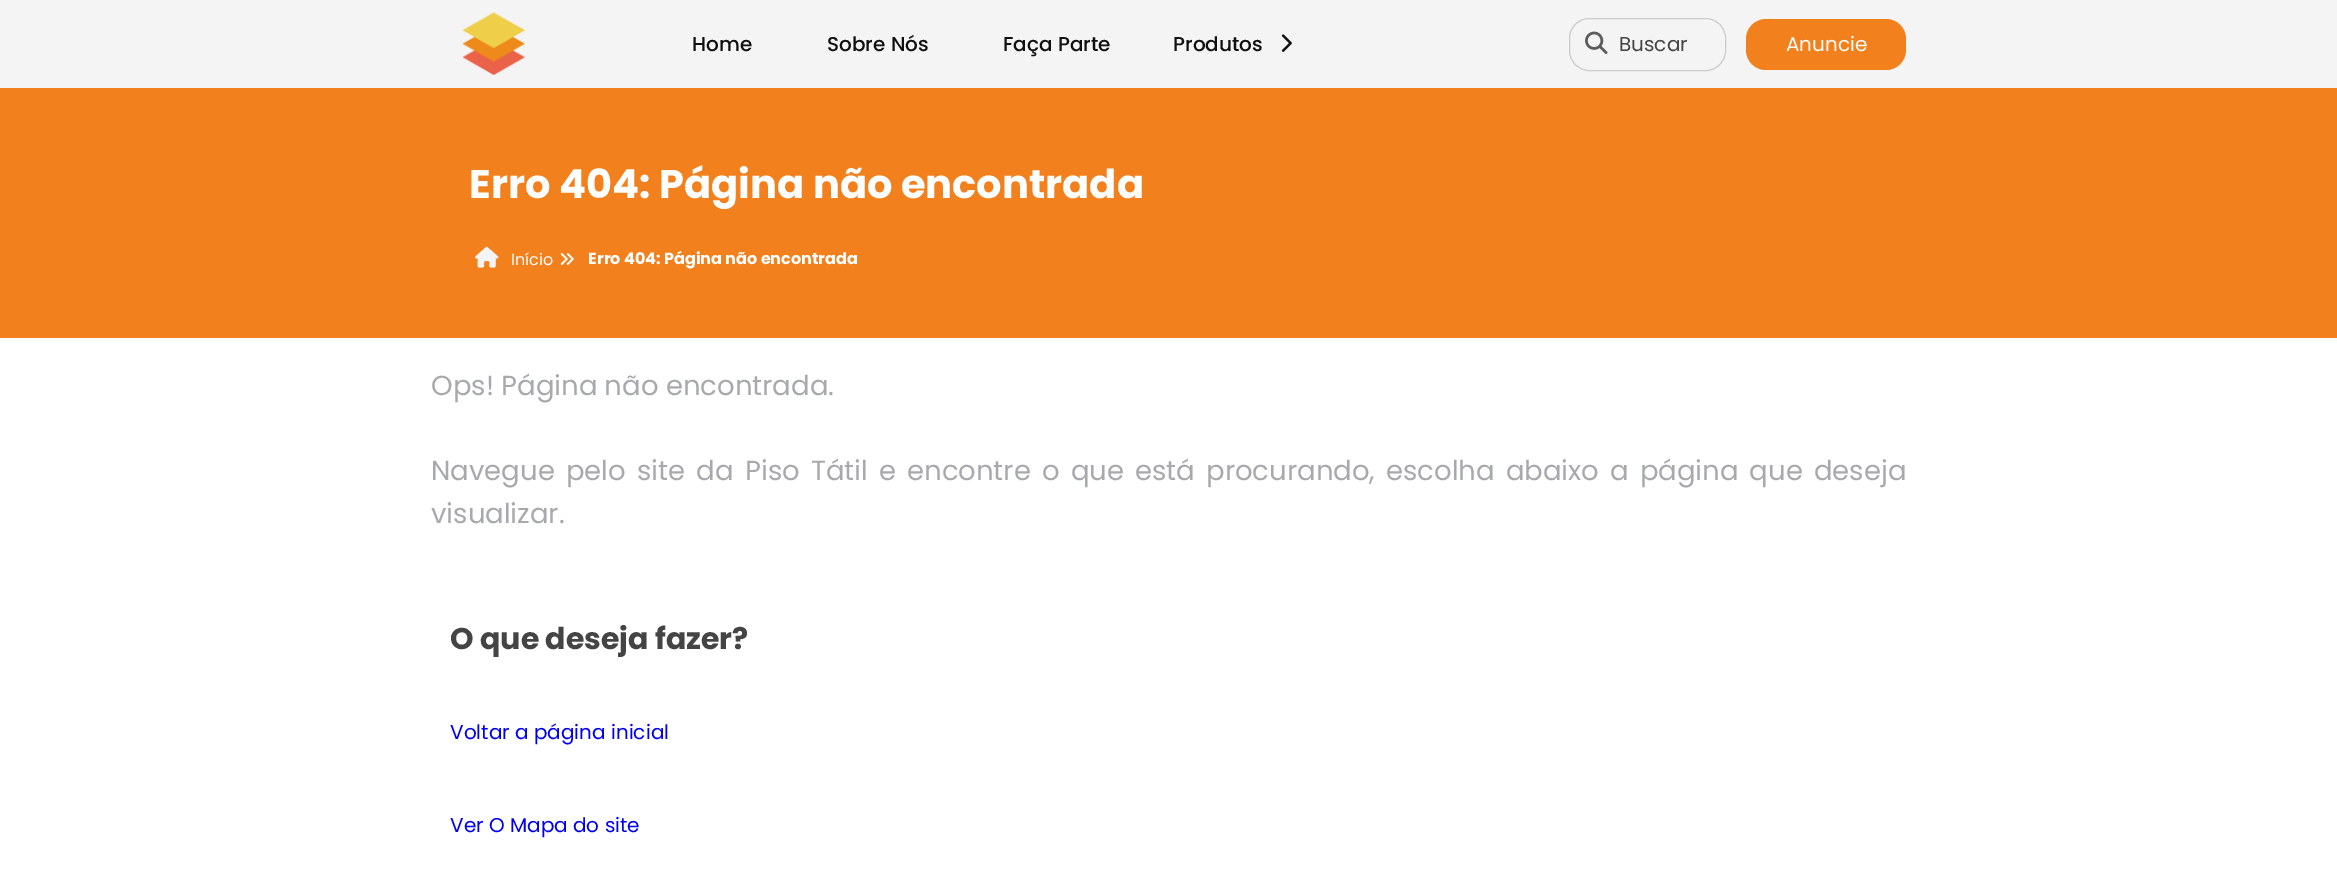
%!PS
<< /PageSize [2337 892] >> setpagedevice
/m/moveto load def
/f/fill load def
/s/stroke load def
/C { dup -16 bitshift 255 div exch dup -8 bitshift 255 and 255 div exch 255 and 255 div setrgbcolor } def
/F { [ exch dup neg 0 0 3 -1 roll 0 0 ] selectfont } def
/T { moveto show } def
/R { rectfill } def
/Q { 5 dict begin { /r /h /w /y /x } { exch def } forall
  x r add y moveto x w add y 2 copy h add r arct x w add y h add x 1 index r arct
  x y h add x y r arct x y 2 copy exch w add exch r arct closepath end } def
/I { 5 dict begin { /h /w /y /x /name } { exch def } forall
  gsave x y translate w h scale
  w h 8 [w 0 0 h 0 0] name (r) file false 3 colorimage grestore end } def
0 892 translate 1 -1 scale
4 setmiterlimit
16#FFFFFF C
0 0 2337 892 R
16#F4F4F4 C
0 0 2337 88 R
(1.rgb) 462 12 63 63 I
/Poppins-Medium 20 F
16#101010 C
(Home) 692 51 T
(Sobre Nós) 827 51 T
(Faça Parte) 1003 51 T
(Produtos) 1173 51 T
(2.rgb) 1281 34 11 18 I
16#CCCCCC C
1569.5 18.5 156 52 19.5 Q s
(3.rgb) 1585 31 23 23 I
/Poppins-Regular 20 F
16#444444 C
(Buscar) 1619 51 T
16#F2811D C
1746 19 160 51 20 Q f
16#FFFFFF C
(Anuncie) 1786 51 T
16#F2811D C
0 88 2337 250 R
/Poppins-Bold 40 F
16#FFFFFF C
(Erro 404: Página não encontrada) 469 198 T
(4.rgb) 475 246 24 22 I
/Poppins-Regular 16 F
(Início) 511 265 T
(5.rgb) 560 253 14 12 I
/Poppins-Bold 16 F
(Erro 404: Página não encontrada) 588 264 T
/Poppins-Regular 27.5 F
16#A7A9AC C
(Ops! Página não encontrada.) 431 395 T
431 480 m 3.75 0 32 (Navegue pelo site da) widthshow
745 480 m 3.75 0 32 (Piso Tátil e encontre o que está procurando, escolha abaixo a página que deseja) widthshow
(visualizar.) 431 523 T
/Poppins-Bold 30 F
16#444444 C
(O que deseja fazer?) 450 649 T
/Poppins-Regular 20 F
16#0000EE C
(Voltar a página inicial) 450 739 T
(Ver O Mapa do site) 450 832 T
showpage
